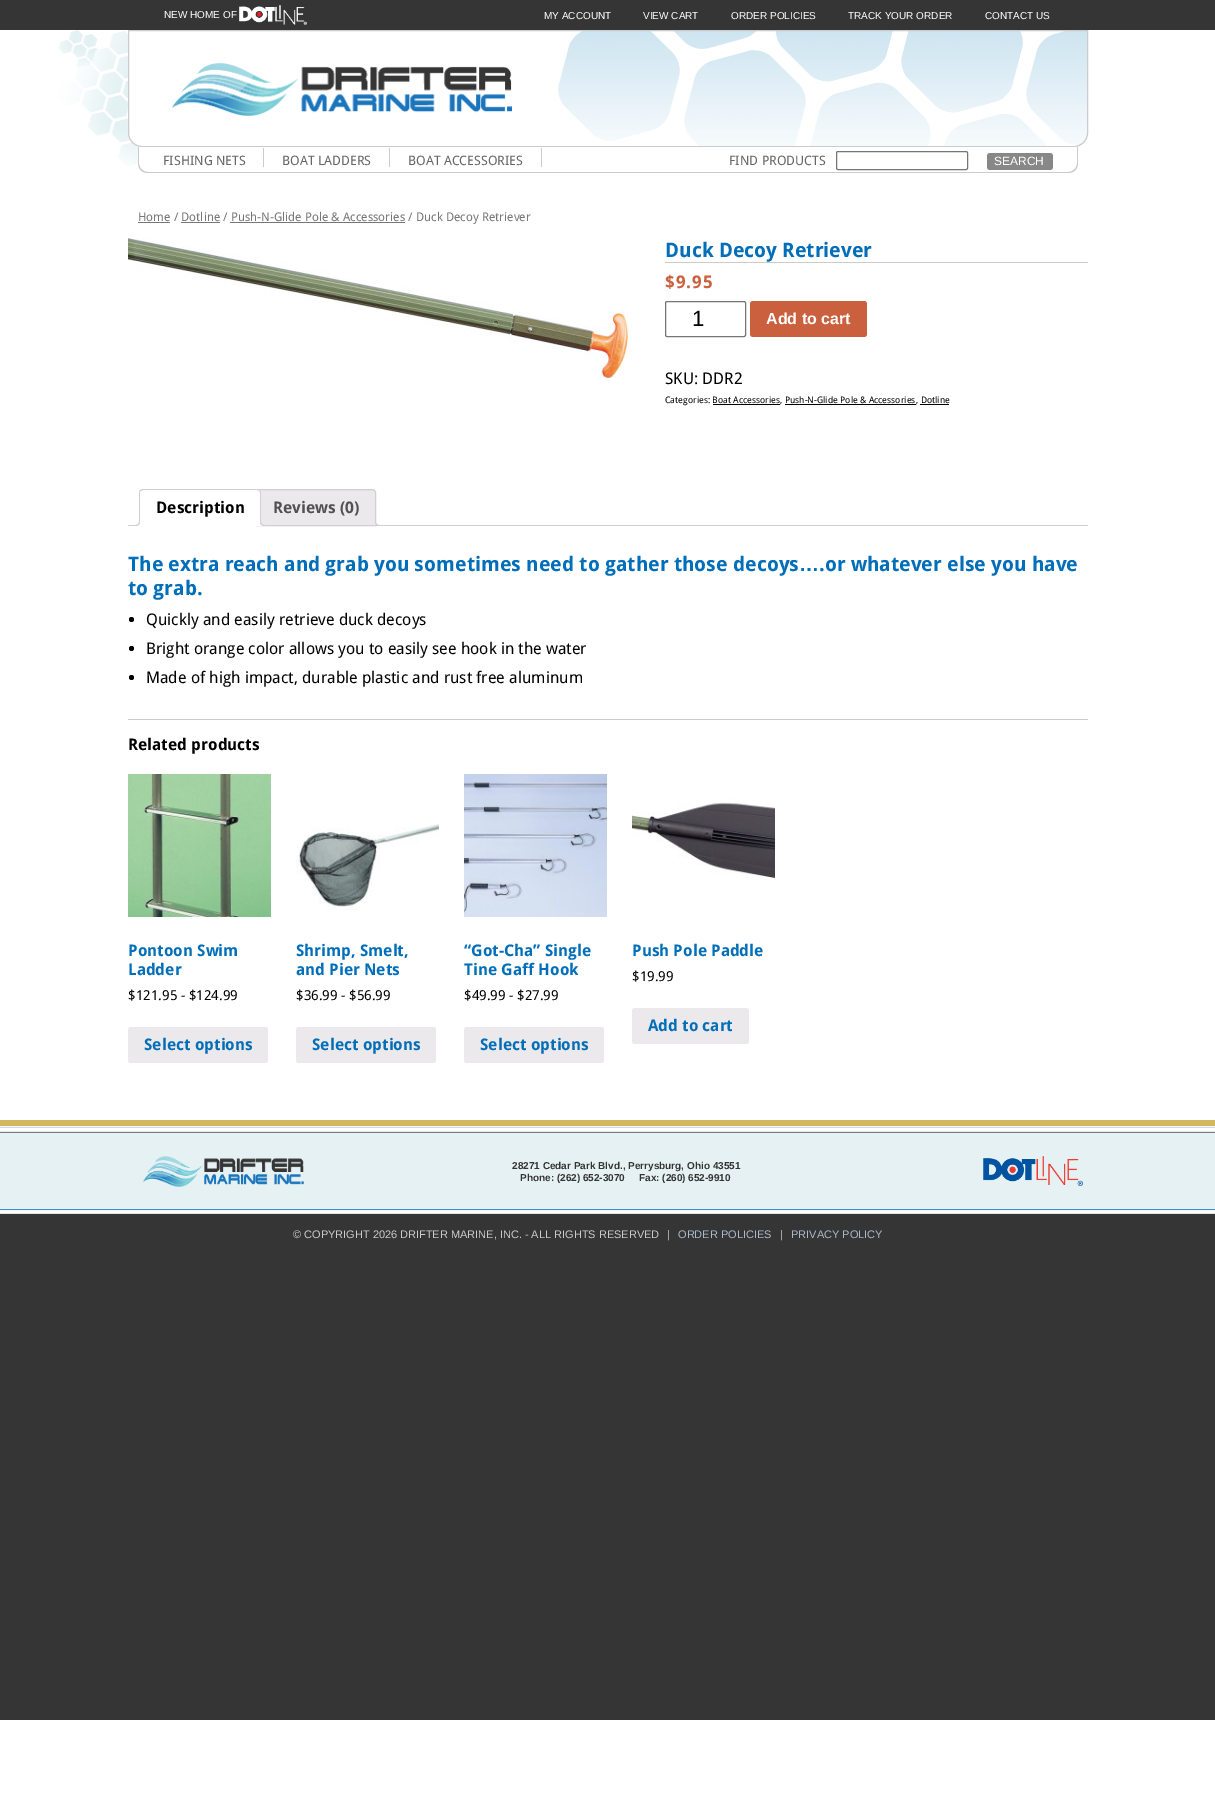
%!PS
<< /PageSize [1215 1793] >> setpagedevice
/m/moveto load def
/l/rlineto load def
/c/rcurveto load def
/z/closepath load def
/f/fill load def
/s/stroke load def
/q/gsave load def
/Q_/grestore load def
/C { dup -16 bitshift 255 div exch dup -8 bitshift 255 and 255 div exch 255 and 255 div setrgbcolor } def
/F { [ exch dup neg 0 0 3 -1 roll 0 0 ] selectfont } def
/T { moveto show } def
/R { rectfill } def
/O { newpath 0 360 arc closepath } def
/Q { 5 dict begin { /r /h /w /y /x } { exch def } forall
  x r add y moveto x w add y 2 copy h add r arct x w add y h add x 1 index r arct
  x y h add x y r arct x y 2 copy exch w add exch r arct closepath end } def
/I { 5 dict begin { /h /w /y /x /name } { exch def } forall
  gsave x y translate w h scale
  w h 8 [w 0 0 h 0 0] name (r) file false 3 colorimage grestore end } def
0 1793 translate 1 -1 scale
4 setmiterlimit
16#FFFFFF C
0 0 1215 1793 R
16#353535 C
0 0 1215 30 R
/LiberationSans-Regular 10 F
16#FFFFFF C
(NEW HOME OF) 164 18 T
(1.rgb) 239 5 68 20 I
(MY ACCOUNT) 544 19 T
(VIEW CART) 643 19 T
(ORDER POLICIES) 731 19 T
(TRACK YOUR ORDER) 848 19 T
(CONTACT US) 985 19 T
(2.rgb) 58 30 84 136 I
(3.rgb) 128 31 960 115 I
16#CCCCCC C
128.5 30.5 m 959 0 l 0 102.5 l 0 7.5 -6 13.5 -13.5 13.5 c -932 0 l -7.5 0 -13.5 -6 -13.5 -13.5 c z s
(4.rgb) 172 63 340 53 I
16#FFFFFF C
138 147 m 940 0 l 0 16 l 0 5.5 -4.5 10 -10 10 c -920 0 l -5.5 0 -10 -4.5 -10 -10 c z f
16#CCCCCC C
138 147 m 940 0 l 0 16 l 0 6 -4 10 -10 10 c -920 0 l -6 0 -10 -4 -10 -10 c z 139 147 m 938 0 l 0 16 l 0 5 -4 9 -9 9 c -920 0 l -5 0 -9 -4 -9 -9 c z eofill
263 148 1 19 R
/DroidSans-Regular 13 F
16#666666 C
(FISHING NETS) 163 165 T
16#CCCCCC C
389 148 1 19 R
16#666666 C
(BOAT LADDERS) 282 165 T
16#CCCCCC C
541 148 1 19 R
16#666666 C
(BOAT ACCESSORIES) 408 165 T
(FIND PRODUCTS) 729 165 T
16#767676 C
836.5 151.5 131 18 1.5 Q s
16#888888 C
987 153 66 17 3 Q f
/LiberationSans-Regular 12 F
16#FFFFFF C
(SEARCH) 994 165 T
16#777777 C
138 222 32 1 R
/DroidSans-Regular 12 F
(Home / Dotline / Push-N-Glide Pole & Accessories / Duck Decoy Retriever) 138 221 T
181 222 39 1 R
230 222 175 1 R
(5.rgb) 128 238 500 140 I
16#CCCCCC C
665 262 423 1 R
/DroidSans-Bold 20 F
16#006EB8 C
(Duck Decoy Retriever) 665 257 T
/DroidSans-Bold 17.5 F
16#CB603E C
665 288 m 1 0 ($9.95) ashow
16#767676 C
665.5 301.5 80 35 1.5 Q s
/LiberationSans-Regular 22 F
16#000000 C
(1) 692 326 T
16#CB603E C
750 301 117 36 3 Q f
/LiberationSans-Bold 16 F
16#FFFFFF C
(Add to cart) 766 324 T
/DroidSans-Regular 16 F
16#000000 C
(SKU: DDR2) 665 384 T
/DroidSans-Regular 9 F
(Categories: Boat Accessories, Push-N-Glide Pole & Accessories) 665 403 T
713 404 67 1 R
785 404 131 1 R
(, Dotline) 916 403 T
920 404 29 1 R
16#EBE9EB C
260 489.5 m 112 0 l 2 0 3.5 1.5 3.5 3.5 c 0 32.5 l -119 0 l 0 -32.5 l 0 -2 1.5 -3.5 3.5 -3.5 c z q f Q_
16#D3CED2 C
s
q
128 489 960 37 rectclip
16#EBE9EB C
373 523 m 0 3.5 1.5 5 5 5 c 0 -2 l -1.5 -.5 -2.5 -1.5 -3 -3 c z f
Q_
375 521 m 5 0 l 0 5 l -2.5 0 -5 -1 -5 -4 c z 376 521 m 4 0 l 0 4 l -2 0 -4 -.5 -4 -3 c z eofill
128 525 960 1 R
16#FFFFFF C
143 489 m 114 0 l 2 0 4 2 4 4 c 0 33 l -122 0 l 0 -33 l 0 -2 2 -4 4 -4 c z f
16#D3CED2 C
143 489 m -3 1 l 1 1 l 2 -1 l 114 0 l 2 1 l 1 -1 l -3 -1 l z f
261 526 m 0 -33 l 0 -1 -.5 -2 -1 -3 c -1 1 l 1 0 1 1 1 2 c 0 32 l z f
16#FFFFFF C
261 526 m -1 -1 l -120 0 l -1 1 l z f
16#D3CED2 C
139 526 m 1 -1 l 0 -32 l 0 -1 0 -2 1 -2 c -1 -1 l -.5 1 -1 2 -1 3 c z f
/DroidSans-Bold 16 F
16#000000 C
(Description) 156 513 T
q
128 489 960 37 rectclip
16#FFFFFF C
137 526 m 0 2 l 3.5 0 5 -1.5 5 -5 c -2 0 l -.5 1.5 -1.5 2.5 -3 3 c z f
Q_
16#D3CED2 C
135 521 m 5 0 l 0 3.5 -1.5 5 -5 5 c z 135 521 m 4 0 l 0 3 -1 4 -4 4 c z eofill
q
128 489 960 37 rectclip
16#FFFFFF C
258 523 m 0 3.5 1.5 5 5 5 c 0 -2 l -1.5 -.5 -2.5 -1.5 -3 -3 c z f
Q_
260 521 m 5 0 l 0 5 l -2.5 0 -5 -1 -5 -4 c z 261 521 m 4 0 l 0 4 l -2 0 -4 -.5 -4 -3 c z eofill
16#515151 C
(Reviews \(0\)) 273 513 T
/DroidSans-Bold 20 F
16#006EB8 C
(The extra reach and grab you sometimes need to gather those decoys) 128 571 T
/LiberationSans-Bold 20 F
(…) 799 571 T
/DroidSans-Bold 20 F
(.or whatever else you have) 819 571 T
(to grab.) 128 595 T
16#000000 C
131.5 619.5 2.5 O f
/DroidSans-Regular 16 F
(Quickly and easily retrieve duck decoys) 146 625 T
131.5 648.5 2.5 O f
(Bright orange color allows you to easily see hook in the water) 146 654 T
131.5 677.5 2.5 O f
(Made of high impact, durable plastic and rust free aluminum) 146 683 T
16#CCCCCC C
128 719 960 1 R
/DroidSans-Bold 16 F
16#000000 C
(Related products) 128 750 T
(6.rgb) 128 774 143 143 I
16#006EB8 C
(Pontoon Swim) 128 956 T
(Ladder) 128 975 T
/DroidSans-Regular 13.75 F
16#000000 C
($121.95 - $124.99) 128 1000 T
16#EBE9EB C
128 1027 140 36 3 Q f
/DroidSans-Bold 16 F
16#006EB8 C
(Select options) 144 1050 T
(7.rgb) 296 824 143 86 I
(Shrimp, Smelt,) 296 956 T
(and Pier Nets) 296 975 T
/DroidSans-Regular 13.75 F
16#000000 C
($36.99 - $56.99) 296 1000 T
16#EBE9EB C
296 1027 140 36 3 Q f
/DroidSans-Bold 16 F
16#006EB8 C
(Select options) 312 1050 T
(8.rgb) 464 774 143 143 I
(“Got-Cha” Single) 464 956 T
(Tine Gaff Hook) 464 975 T
/DroidSans-Regular 13.75 F
16#000000 C
($49.99 - $27.99) 464 1000 T
16#EBE9EB C
464 1027 140 36 3 Q f
/DroidSans-Bold 16 F
16#006EB8 C
(Select options) 480 1050 T
(9.rgb) 632 799 143 81 I
(Push Pole Paddle) 632 956 T
/DroidSans-Regular 13.75 F
16#000000 C
($19.99) 632 981 T
16#EBE9EB C
632 1008 117 36 3 Q f
/DroidSans-Bold 16 F
16#006EB8 C
(Add to cart) 648 1031 T
16#353535 C
0 1214 1215 506 R
(10.rgb) 0 1120 1215 94 I
(11.rgb) 143 1156 161 31 I
/LiberationSans-Bold 10 F
16#353434 C
(28271 Cedar Park Blvd., Perrysburg, Ohio 43551) 512 1169 T
(Phone: \(262\) 652-3070     Fax: \(260\) 652-9910) 520 1181 T
(12.rgb) 983 1156 100 30 I
/LiberationSans-Regular 11 F
16#CCCCCC C
(© COPYRIGHT 2026 DRIFTER MARINE, INC. - ALL RIGHTS RESERVED) 293 1238 T
(|) 667 1238 T
16#AABBCC C
(ORDER POLICIES) 678 1238 T
16#CCCCCC C
(|) 780 1238 T
16#AABBCC C
(PRIVACY POLICY) 791 1238 T
showpage
